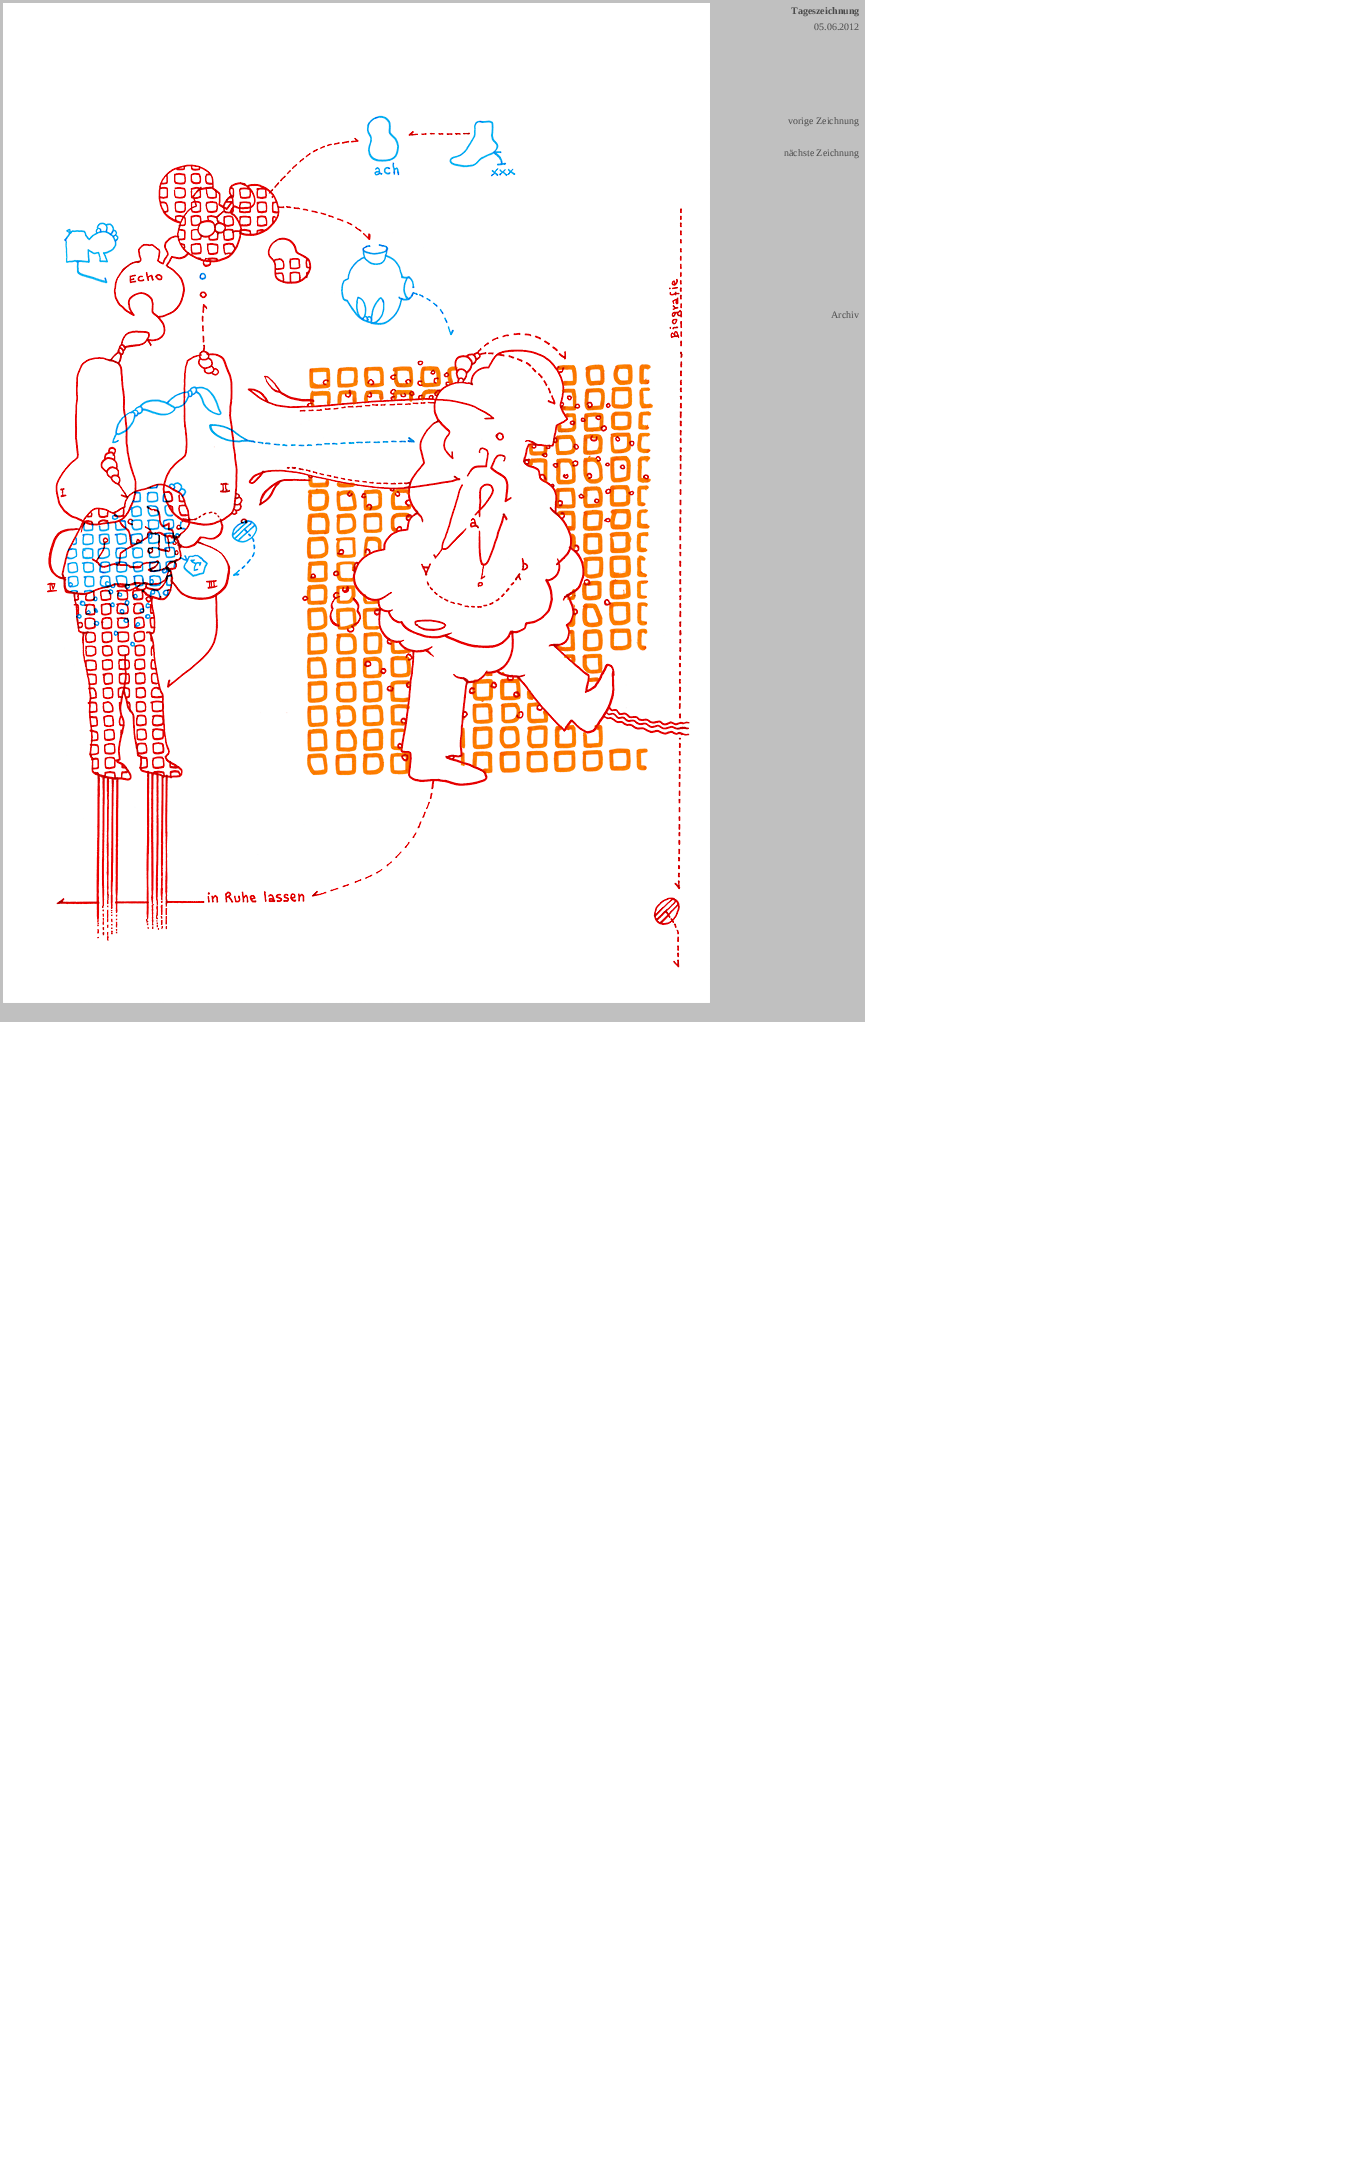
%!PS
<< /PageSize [1347 2170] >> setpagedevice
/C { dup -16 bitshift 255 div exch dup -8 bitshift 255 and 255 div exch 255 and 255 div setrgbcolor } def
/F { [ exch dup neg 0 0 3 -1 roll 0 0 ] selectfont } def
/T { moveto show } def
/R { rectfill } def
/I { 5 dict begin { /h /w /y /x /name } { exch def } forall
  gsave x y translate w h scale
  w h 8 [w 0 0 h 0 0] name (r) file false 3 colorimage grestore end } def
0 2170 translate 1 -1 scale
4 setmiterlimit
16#FFFFFF C
0 0 1347 2170 R
16#C0C0C0 C
0 0 865 1006 R
(1.rgb) 3 3 707 1000 I
/LiberationSerif-Bold 10 F
16#4C4C4C C
(Tageszeichnung) 791 14 T
/LiberationSerif-Regular 10 F
(05.06.2012) 814 30 T
(vorige Zeichnung) 788 124 T
(nächste Zeichnung) 784 156 T
(Archiv) 831 318 T
16#C0C0C0 C
0 1006 865 16 R
showpage
